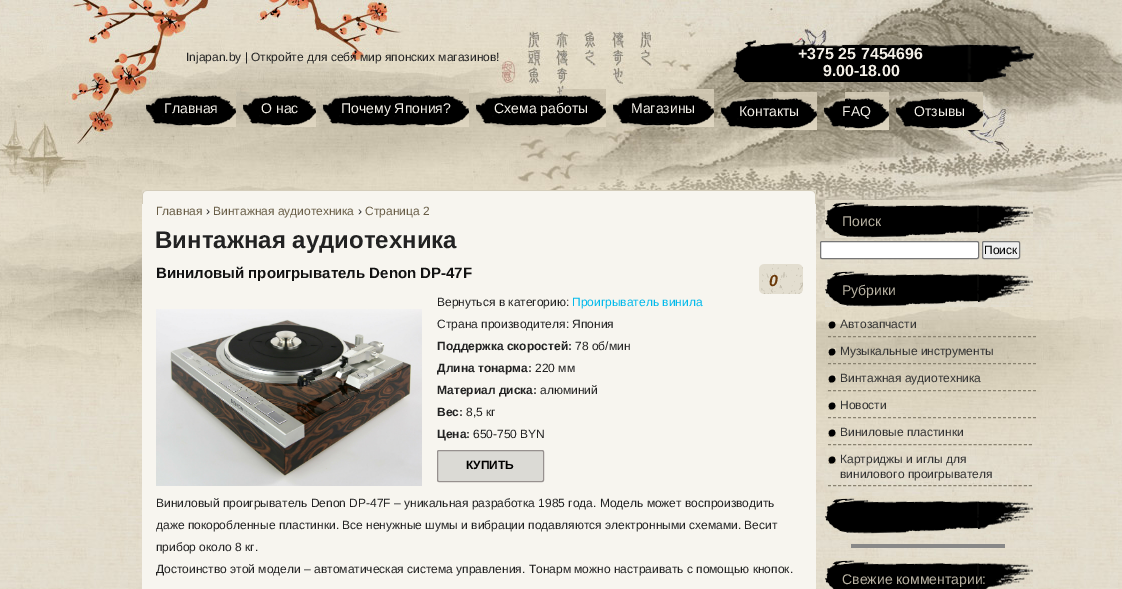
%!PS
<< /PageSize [1122 589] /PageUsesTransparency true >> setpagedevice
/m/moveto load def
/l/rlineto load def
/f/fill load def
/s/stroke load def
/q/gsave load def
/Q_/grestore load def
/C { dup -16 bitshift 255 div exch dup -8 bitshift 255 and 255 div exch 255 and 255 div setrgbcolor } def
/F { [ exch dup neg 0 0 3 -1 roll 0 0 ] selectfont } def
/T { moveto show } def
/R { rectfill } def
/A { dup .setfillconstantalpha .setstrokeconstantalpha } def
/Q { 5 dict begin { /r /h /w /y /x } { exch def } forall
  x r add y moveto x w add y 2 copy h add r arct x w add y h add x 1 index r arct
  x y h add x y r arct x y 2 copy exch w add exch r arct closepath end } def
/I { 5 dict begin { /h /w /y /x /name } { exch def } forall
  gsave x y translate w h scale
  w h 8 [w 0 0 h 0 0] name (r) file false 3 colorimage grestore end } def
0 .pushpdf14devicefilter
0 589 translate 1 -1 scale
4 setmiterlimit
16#FFFFFF C
0 0 1122 589 R
(1.rgb) 0 471 1122 118 I
(2.rgb) 0 0 1122 471 I
/LiberationSans-Regular 12 F
16#222222 C
(Injapan.by | Откройте для себя мир японских магазинов!) 186 61 T
(3.rgb) 733 40 301 42 I
/LiberationSans-Bold 16 F
16#F4F0E8 C
(+375 25 7454696) 798 59 T
(9.00-18.00) 823 76 T
(4.rgb) 146 94 89 34 I
(5.rgb) 192 89 44 38 I
/LiberationSans-Regular 14 F
(Главная) 164 113 T
(6.rgb) 243 94 70 34 I
(5.rgb) 272 89 44 38 I
(О нас) 261 113 T
(7.rgb) 323 93 120 35 I
(5.rgb) 425 89 44 38 I
(Почему Япония?) 341 113 T
(8.rgb) 476 93 120 35 I
(5.rgb) 562 89 44 38 I
(Схема работы) 494 113 T
(9.rgb) 613 93 93 35 I
(5.rgb) 670 89 44 38 I
(Магазины) 631 113 T
(10.rgb) 721 96 92 35 I
(5.rgb) 773 92 44 38 I
(Контакты) 739 116 T
(11.rgb) 824 97 65 34 I
(5.rgb) 845 92 44 38 I
(FAQ) 842 116 T
(12.rgb) 896 96 87 35 I
(5.rgb) 939 92 44 38 I
(Отзывы) 914 116 T
16#F7F5EF C
142 204 674 385 R
(13.rgb) 142 190 674 14 I
/LiberationSans-Regular 12 F
16#685D46 C
(Главная) 156 215 T
16#222222 C
(›) 206 215 T
16#685D46 C
(Винтажная аудиотехника) 213 215 T
16#222222 C
(›) 358 215 T
16#685D46 C
(Страница 2) 365 215 T
/LiberationSans-Bold 24 F
16#222222 C
(Винтажная аудиотехника) 155 248 T
/LiberationSans-Bold 15 F
16#111111 C
(Виниловый проигрыватель Denon DP-47F) 156 278 T
(14.rgb) 759 264 44 30 I
/LiberationSans-BoldItalic 16 F
16#6B3909 C
(0) 769 286 T
(15.rgb) 156 309 266 177 I
/LiberationSans-Regular 12 F
16#222222 C
(Вернуться в категорию:) 437 306 T
16#00B9EB C
(Проигрыватель винила) 572 306 T
16#222222 C
(Страна производителя: Япония) 437 328 T
/LiberationSans-Bold 12 F
(Поддержка скоростей:) 437 350 T
/LiberationSans-Regular 12 F
(78 об/мин) 575 350 T
/LiberationSans-Bold 12 F
(Длина тонарма:) 437 372 T
/LiberationSans-Regular 12 F
(220 мм) 535 372 T
/LiberationSans-Bold 12 F
(Материал диска:) 437 394 T
/LiberationSans-Regular 12 F
(алюминий) 540 394 T
/LiberationSans-Bold 12 F
(Вес:) 437 416 T
/LiberationSans-Regular 12 F
(8,5 кг) 466 416 T
/LiberationSans-Bold 12 F
(Цена:) 437 438 T
/LiberationSans-Regular 12 F
(650-750 BYN) 473 438 T
16#DBDAD5 C
437 450 107 32 2 Q f
0.54 A
16#5D5454 C
437.5 450.5 106 31 1.5 Q s
/LiberationSans-Bold 12 F
1 A
16#000000 C
(КУПИТЬ) 466 469 T
/LiberationSans-Regular 12 F
16#222222 C
(Виниловый проигрыватель Denon DP-47F – уникальная разработка 1985 года. Модель может воспроизводить) 156 507 T
(даже покоробленные пластинки. Все ненужные шумы и вибрации подавляются электронными схемами. Весит) 156 529 T
(прибор около 8 кг.) 156 551 T
(Достоинство этой модели – автоматическая система управления. Тонарм можно настраивать с помощью кнопок.) 156 573 T
(16.rgb) 825 200 208 38 I
/LiberationSans-Regular 14 F
16#B7B1A1 C
(Поиск) 842 226 T
16#FFFFFF C
820.5 241.5 158 17 1.5 Q q f Q_
16#767676 C
s
16#EFEFEF C
982.5 241.5 37 17 1.5 Q q f Q_
16#767676 C
s
/LiberationSans-Regular 12 F
16#000000 C
(Поиск) 984 254 T
(16.rgb) 825 269 208 38 I
/LiberationSans-Regular 14 F
16#B7B1A1 C
(Рубрики) 842 295 T
(17.rgb) 828 321 8 8 I
16#8A8371 C
[3 2] 0 setdash
828 336.5 m 208 0 l s
/LiberationSans-Regular 12 F
16#333333 C
(Автозапчасти) 840 328 T
(17.rgb) 828 348 8 8 I
16#8A8371 C
828 363.5 m 208 0 l s
16#333333 C
(Музыкальные инструменты) 840 355 T
(17.rgb) 828 375 8 8 I
16#8A8371 C
828 390.5 m 208 0 l s
16#333333 C
(Винтажная аудиотехника) 840 382 T
(17.rgb) 828 402 8 8 I
16#8A8371 C
828 417.5 m 208 0 l s
16#333333 C
(Новости) 840 409 T
(17.rgb) 828 429 8 8 I
16#8A8371 C
[3 2.02] 0 setdash
828 444.5 m 204 0 l s
16#333333 C
(Виниловые пластинки) 840 436 T
(17.rgb) 828 456 8 8 I
16#8A8371 C
828 485.5 m 204 0 l s
16#333333 C
(Картриджы и иглы для) 840 463 T
(винилового проигрывателя) 840 478 T
(16.rgb) 825 496 208 38 I
16#888888 C
851 544 154 4 R
(18.rgb) 825 558 208 31 I
/LiberationSans-Regular 14 F
16#B7B1A1 C
(Свежие комментарии:) 842 584 T
.poppdf14devicefilter showpage
